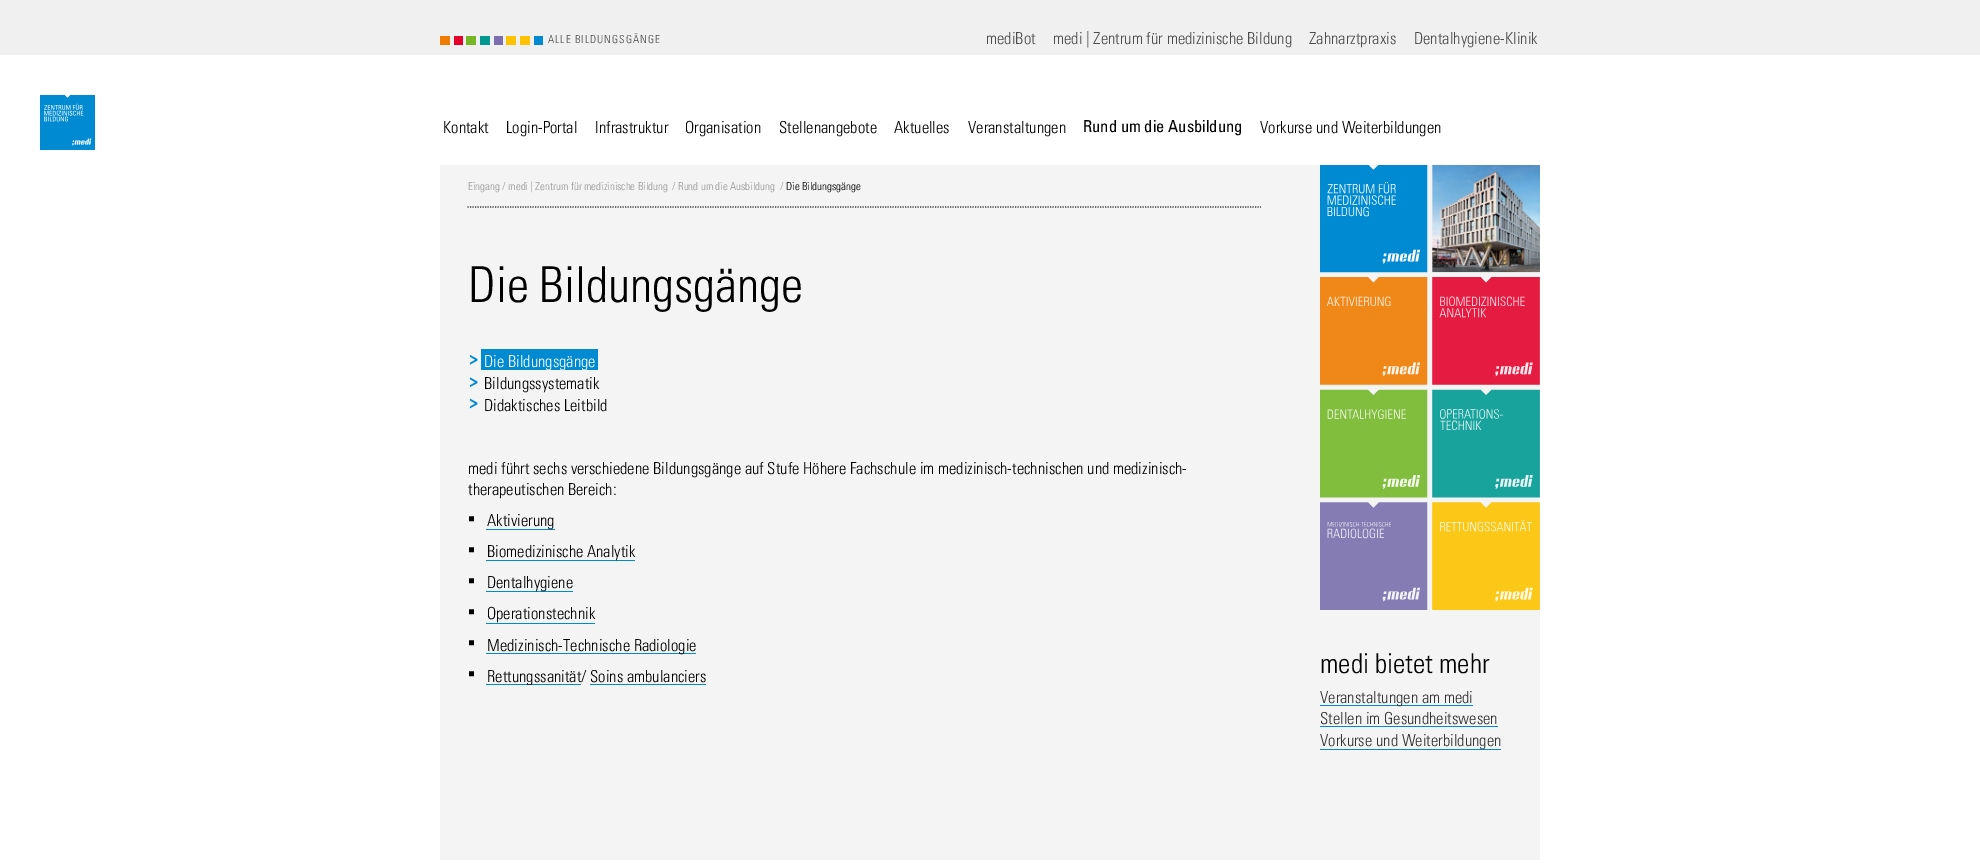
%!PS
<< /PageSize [1980 867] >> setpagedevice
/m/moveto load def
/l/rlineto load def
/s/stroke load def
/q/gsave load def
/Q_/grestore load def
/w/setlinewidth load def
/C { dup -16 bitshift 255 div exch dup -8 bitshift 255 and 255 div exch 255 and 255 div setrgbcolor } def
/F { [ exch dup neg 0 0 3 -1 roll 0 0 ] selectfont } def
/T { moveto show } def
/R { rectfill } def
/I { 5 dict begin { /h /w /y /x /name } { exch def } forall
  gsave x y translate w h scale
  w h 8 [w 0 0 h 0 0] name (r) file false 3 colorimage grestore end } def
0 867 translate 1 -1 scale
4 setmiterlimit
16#FFFFFF C
0 0 1980 867 R
16#F0F0F0 C
0 0 1980 55 R
16#EF7C00 C
440 36 10 9 R
16#E4002B C
454 36 9 9 R
16#75B726 C
466 36 10 9 R
16#009992 C
480 36 10 9 R
16#7C6DB0 C
494 36 9 9 R
16#FDC300 C
506 36 10 9 R
520 36 10 9 R
16#008AD2 C
534 36 9 9 R
/Univers-Light 11 F
16#4D4D4D C
548 43 m 1 0 (ALLE BILDUNGSGÄNGE) ashow
/Univers-Light 16.5 F
(mediBot) 986 44 T
(medi | Zentrum für medizinische Bildung) 1053 44 T
(Zahnarztpraxis) 1309 44 T
(Dentalhygiene-Klinik) 1414 44 T
(1.rgb) 40 95 55 55 I
16#000000 C
(Kontakt) 443 133 T
(Login-Portal) 506 133 T
(Infrastruktur) 595 133 T
(Organisation) 685 133 T
(Stellenangebote) 779 133 T
(Aktuelles) 894 133 T
(Veranstaltungen) 968 133 T
/Univers-Regular 16.5 F
(Rund um die Ausbildung) 1083 132 T
/Univers-Light 16.5 F
(Vorkurse und Weiterbildungen) 1260 133 T
16#F4F4F4 C
440 165 1100 695 R
16#333333 C
1.2 w
[1.25 1.25] 0 setdash
467.5 207 m 793.5 0 l s
/Univers-Light 11 F
16#979797 C
(Eingang / medi | Zentrum für medizinische Bildung) 468 190 T
(/ Rund um die Ausbildung) 672 190 T
(/) 780 190 T
16#000000 C
(Die Bildungsgänge) 786 190 T
/Univers-Light 49.5 F
(Die Bildungsgänge) 468 302 T
(2.rgb) 469 355 9 10 I
16#008AD2 C
481 349 117 21 R
/Univers-Light 16.5 F
16#FFFFFF C
(Die Bildungsgänge) 484 367 T
(3.rgb) 469 377 9 10 I
16#000000 C
(Bildungssystematik) 484 389 T
(4.rgb) 469 398 9 11 I
(Didaktisches Leitbild) 484 411 T
(medi führt sechs verschiedene Bildungsgänge auf Stufe Höhere Fachschule im medizinisch-technischen und medizinisch-) 468 474 T
(therapeutischen Bereich:) 468 495 T
/ChironHeiHK-Regular 14 F
(￭) 468 524 T
16#008AD2 C
486 529 69 1 R
/Univers-Light 16.5 F
16#000000 C
(Aktivierung) 487 526 T
/ChironHeiHK-Regular 14 F
(￭) 468 555 T
16#008AD2 C
486 560 149 1 R
/Univers-Light 16.5 F
16#000000 C
(Biomedizinische Analytik) 487 557 T
/ChironHeiHK-Regular 14 F
(￭) 468 586 T
16#008AD2 C
486 591 87 1 R
/Univers-Light 16.5 F
16#000000 C
(Dentalhygiene) 487 588 T
/ChironHeiHK-Regular 14 F
(￭) 468 617 T
/Univers-Light 16.5 F
(Operationstechnik) 487 619 T
16#008AD2 C
486 623 109 1 R
/ChironHeiHK-Regular 14 F
16#000000 C
(￭) 468 648 T
16#008AD2 C
486 653 210 1 R
/Univers-Light 16.5 F
16#000000 C
(Medizinisch-Technische Radiologie) 487 651 T
/ChironHeiHK-Regular 14 F
(￭) 468 679 T
16#008AD2 C
486 684 95 1 R
q
468 509 793 176 rectclip
/Univers-Light 16.5 F
16#000000 C
(Rettungssanität) 487 682 T
Q_
/Univers-Light 16.5 F
16#000000 C
(/ Soins ambulanciers) 581 682 T
16#008AD2 C
590 684 116 1 R
(5.rgb) 1320 165 220 445 I
/Univers-Light 27.5 F
16#000000 C
(medi bietet mehr) 1320 673 T
16#008AD2 C
1320 705 153 1 R
/Univers-Light 16.5 F
16#333333 C
(Veranstaltungen am medi) 1320 703 T
(Stellen im Gesundheitswesen) 1320 724 T
16#008AD2 C
1320 726 178 1 R
1320 749 181 1 R
16#333333 C
(Vorkurse und Weiterbildungen) 1320 746 T
showpage
